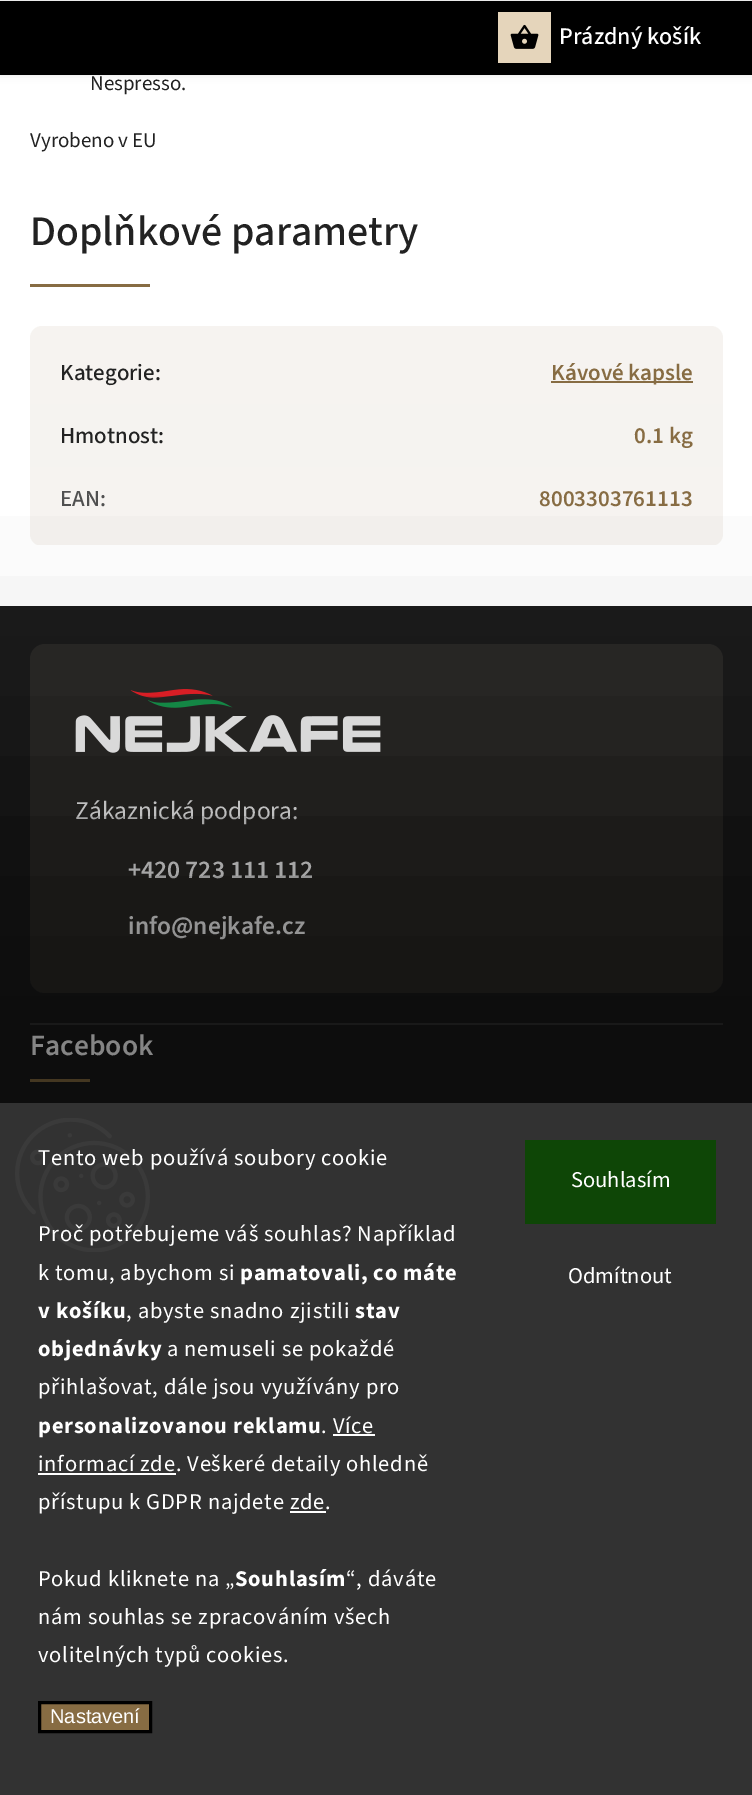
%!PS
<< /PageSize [752 1795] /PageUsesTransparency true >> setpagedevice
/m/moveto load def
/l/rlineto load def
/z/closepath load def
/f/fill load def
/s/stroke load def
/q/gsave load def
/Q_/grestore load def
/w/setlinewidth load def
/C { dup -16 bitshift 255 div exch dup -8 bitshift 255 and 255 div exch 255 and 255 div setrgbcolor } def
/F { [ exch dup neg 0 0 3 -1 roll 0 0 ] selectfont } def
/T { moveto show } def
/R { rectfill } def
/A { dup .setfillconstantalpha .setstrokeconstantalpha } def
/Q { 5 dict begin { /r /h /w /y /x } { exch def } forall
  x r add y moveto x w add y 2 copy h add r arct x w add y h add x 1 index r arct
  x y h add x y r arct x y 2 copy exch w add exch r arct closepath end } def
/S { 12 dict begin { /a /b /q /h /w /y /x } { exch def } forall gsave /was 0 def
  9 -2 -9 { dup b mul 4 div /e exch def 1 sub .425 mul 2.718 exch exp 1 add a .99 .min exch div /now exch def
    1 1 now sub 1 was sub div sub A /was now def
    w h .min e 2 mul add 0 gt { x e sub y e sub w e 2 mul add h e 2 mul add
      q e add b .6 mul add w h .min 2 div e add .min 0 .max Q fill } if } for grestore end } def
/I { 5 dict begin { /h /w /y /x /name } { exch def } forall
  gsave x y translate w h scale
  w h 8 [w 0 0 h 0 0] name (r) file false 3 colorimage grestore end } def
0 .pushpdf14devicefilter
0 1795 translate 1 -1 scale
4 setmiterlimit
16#FFFFFF C
0 0 752 1795 R
16#000000 C
0 0 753 75 0 4 .1 S
16#EAEAEA C
0 0 752 1 R
16#000000 C
0 1 752 74 R
16#E5D5BB C
498 12 53 51 R
(1.rgb) 510 24 29 25 I
/SourceSans3-Medium 24 F
16#FFFFFF C
(Prázdný košík) 559 44 T
/SourceSans3-Regular 21 F
16#222222 C
(Nespresso.) 90 90 T
(Vyrobeno v EU) 30 147 T
/SourceSans3-Medium 42 F
(Doplňkové parametry) 30 245 T
16#876C43 C
30 284 120 3 R
30 326 693 220 12 Q f
0.92 A
16#FFFFFF C
30 326 693 78 R
/SourceSans3-Medium 23 F
1 A
16#222222 C
(Kategorie:) 60 380 T
16#876C43 C
551 381 142 2 R
/SourceSans3-SemiBold 23 F
(Kávové kapsle) 551 380 T
16#F5F3F0 C
30 404 693 63 R
/SourceSans3-Medium 23 F
16#222222 C
(Hmotnost:) 60 443 T
/SourceSans3-SemiBold 23 F
16#876C43 C
(0.1 kg) 634 443 T
0.92 A
16#FFFFFF C
30 467 693 78 R
1 A
30 545 693 1 R
/SourceSans3-Medium 23 F
16#505050 C
(EAN:) 60 506 T
/SourceSans3-SemiBold 23 F
16#876C43 C
(8003303761113) 539 506 T
16#1B1B1B C
0 606 752 497 R
16#323232 C
30 1023 693 2 R
16#2B2A28 C
30 644 693 349 15 Q f
(2.rgb) 75 689 306 64 I
/SourceSans3-Regular 25.5 F
16#FFFFFF C
(Zákaznická podpora:) 75 819 T
/SourceSans3-SemiBold 25.5 F
(+420 723 111 112) 128 878 T
(info@nejkafe.cz) 128 934 T
/SourceSans3-SemiBold 29.5 F
(Facebook) 30 1055 T
16#876C43 C
30 1079 60 3 R
16#000000 C
-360 786 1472 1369 0 120 .5 S
16#323232 C
0 1103 752 692 R
(3.rgb) 15 1118 135 134 I
/SourceSans3-Regular 22.5 F
16#FFFFFF C
38 1165 m .75 0 (Tento web používá soubory cookie) ashow
38 1241 m .75 0 (Proč potřebujeme váš souhlas? Například) ashow
38 1280 m .75 0 (k tomu, abychom si) ashow
/SourceSans3-Bold 22.5 F
240 1280 m .75 0 (pamatovali, co máte) ashow
38 1318 m .75 0 (v košíku) ashow
/SourceSans3-Regular 22.5 F
126 1318 m .75 0 (, abyste snadno zjistili) ashow
/SourceSans3-Bold 22.5 F
355 1318 m .75 0 (stav) ashow
38 1356 m .75 0 (objednávky) ashow
/SourceSans3-Regular 22.5 F
167 1356 m .75 0 (a nemuseli se pokaždé) ashow
38 1394 m .75 0 (přihlašovat, dále jsou využívány pro) ashow
/SourceSans3-Bold 22.5 F
38 1433 m .75 0 (personalizovanou reklamu) ashow
/SourceSans3-Regular 22.5 F
321 1433 m .75 0 (. Více) ashow
333 1434 42 2 R
38 1473 138 2 R
38 1471 m .75 0 (informací zde. Veškeré detaily ohledně) ashow
38 1509 m .75 0 (přístupu k GDPR najdete zde.) ashow
290 1511 36 2 R
38 1586 m .75 0 (Pokud kliknete na „) ashow
/SourceSans3-Bold 22.5 F
235 1586 m .75 0 (Souhlasím) ashow
/SourceSans3-Regular 22.5 F
346 1586 m .75 0 (“, dáváte) ashow
38 1624 m .75 0 (nám souhlas se zpracováním všech) ashow
38 1662 m .75 0 (volitelných typů cookies.) ashow
16#876C43 C
39.5 1702.5 m 111 0 l 0 29 l -111 0 l z q f Q_
16#000000 C
3 w
s
/LiberationSans-Regular 20 F
16#FFFFFF C
(Nastavení) 50 1723 T
16#0E4606 C
525 1140 191 84 R
/SourceSans3-Regular 22.5 F
16#FFFFFF C
(Souhlasím) 571 1187 T
(Odmítnout) 568 1283 T
.poppdf14devicefilter showpage
